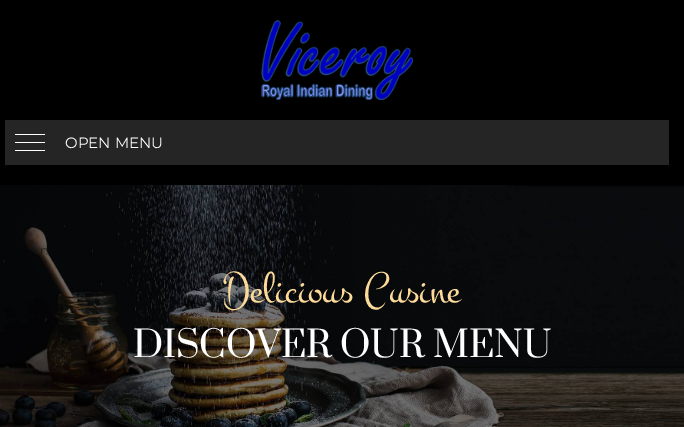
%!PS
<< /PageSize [684 427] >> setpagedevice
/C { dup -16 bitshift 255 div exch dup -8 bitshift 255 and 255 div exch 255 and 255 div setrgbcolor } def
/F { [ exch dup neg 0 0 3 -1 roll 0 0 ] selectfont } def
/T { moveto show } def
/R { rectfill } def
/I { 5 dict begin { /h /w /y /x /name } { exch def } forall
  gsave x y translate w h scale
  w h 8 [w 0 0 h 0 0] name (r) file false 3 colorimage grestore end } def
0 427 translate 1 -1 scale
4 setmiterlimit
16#FFFFFF C
0 0 684 427 R
16#000000 C
0 0 684 185 R
(1.rgb) 261 20 152 80 I
16#252525 C
5 120 664 45 R
16#FFFFFF C
15 150 30 1 R
15 142 30 1 R
15 134 30 1 R
/Montserrat-Regular 15 F
(OPEN MENU) 65 148 T
(2.rgb) 0 185 684 242 I
/Montserrat-ExtraLight 13 F
16#161412 C
(n) 40 255 T
/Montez-Regular 45 F
16#FCDA9A C
(Delicious Cusine) 223 302 T
/Suranna-Regular 45 F
16#FFFFFF C
(DISCOVER OUR MENU) 133 357 T
showpage
